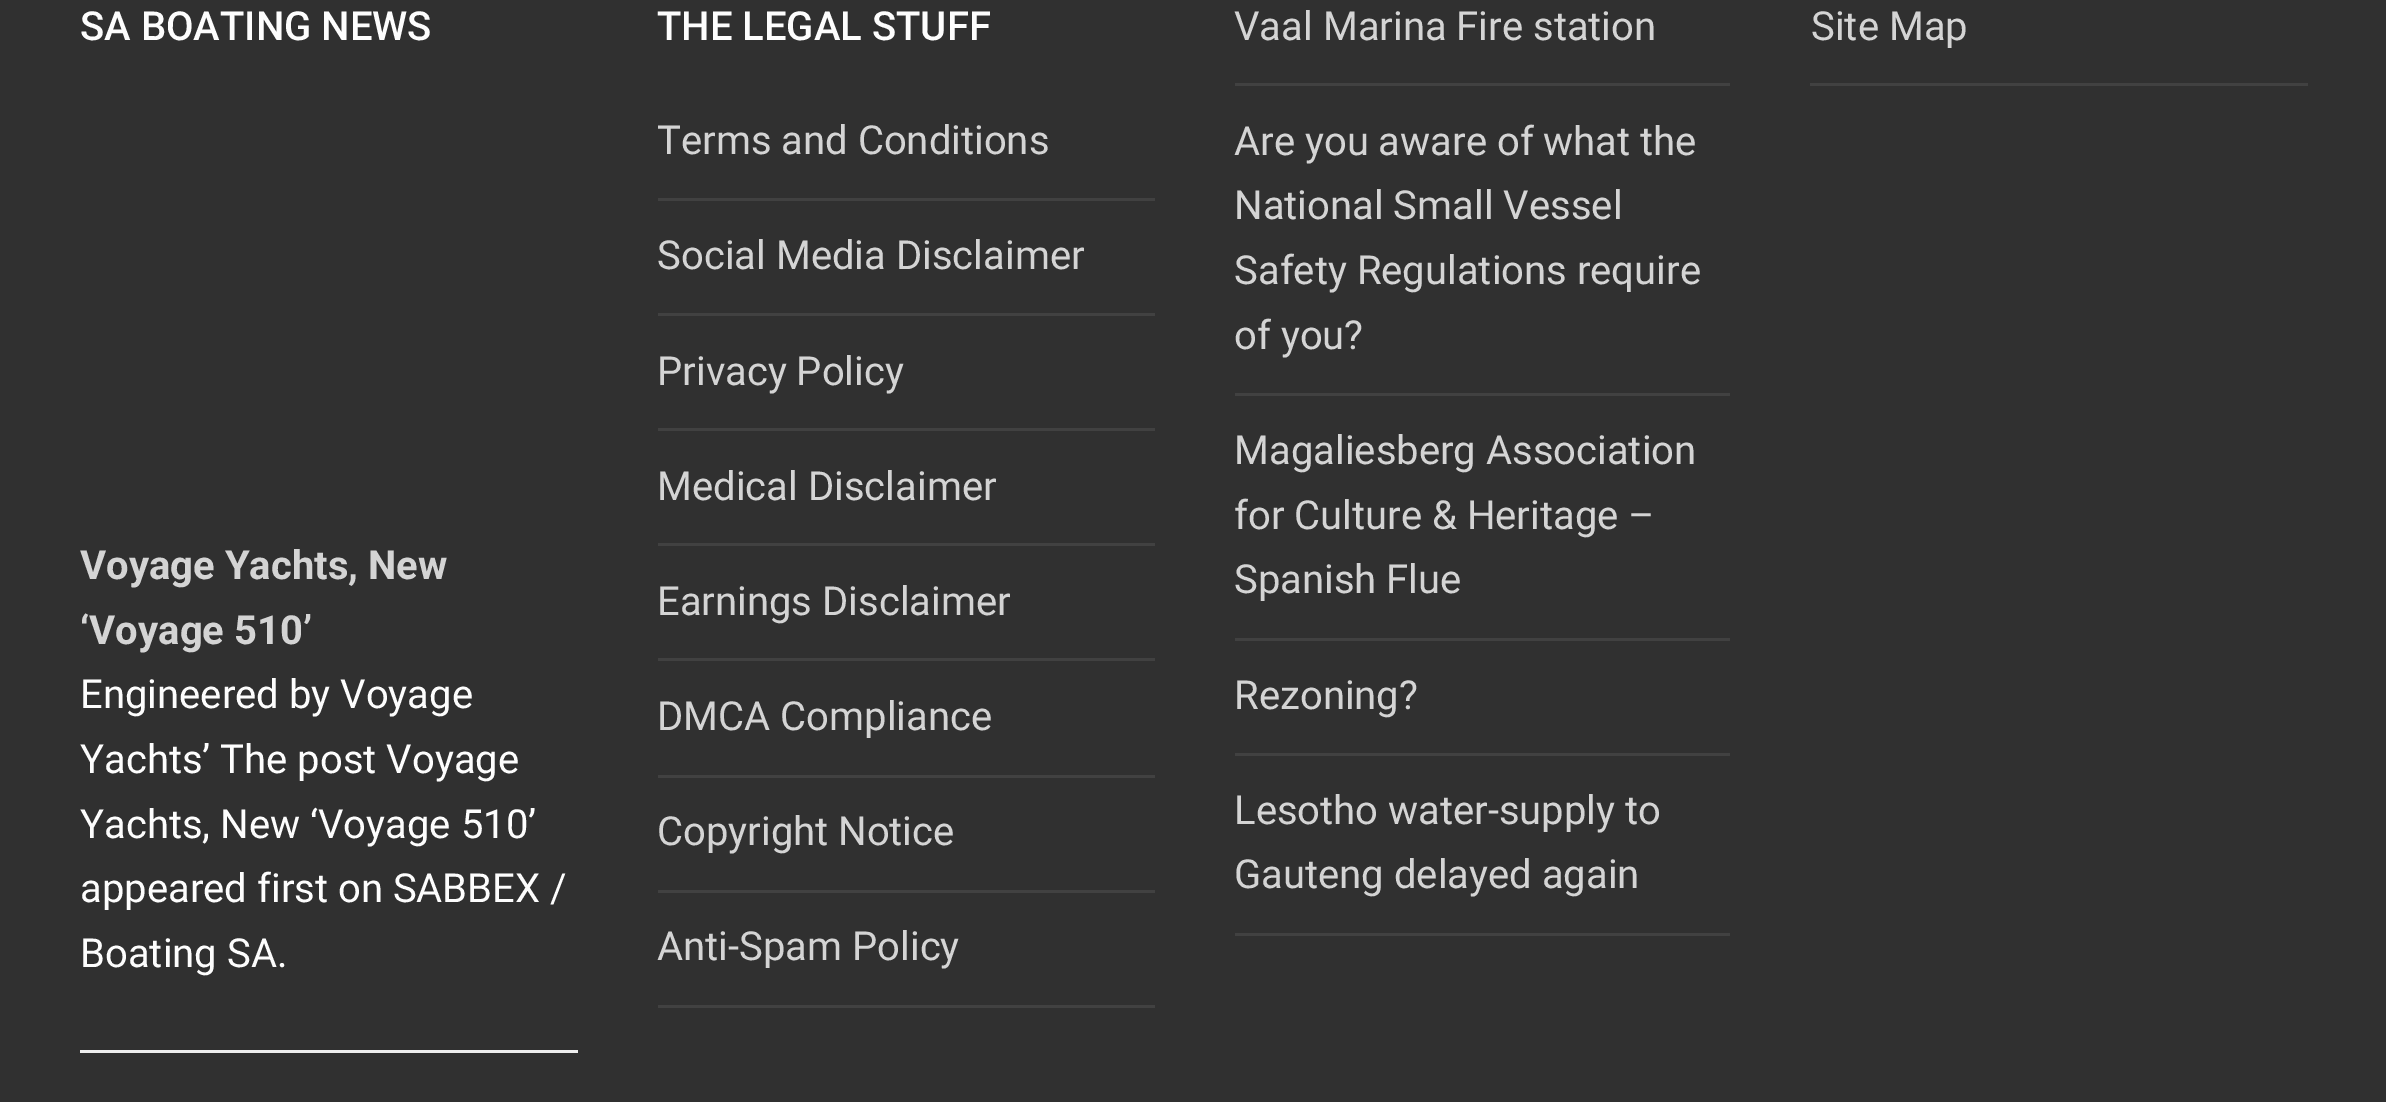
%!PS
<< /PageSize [2386 1102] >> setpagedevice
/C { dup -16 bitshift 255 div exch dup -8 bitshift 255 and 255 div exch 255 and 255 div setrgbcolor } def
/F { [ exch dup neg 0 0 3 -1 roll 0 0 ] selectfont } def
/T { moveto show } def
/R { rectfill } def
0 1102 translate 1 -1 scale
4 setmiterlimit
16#303030 C
0 0 2386 1102 R
/Roboto-Medium 40 F
16#FDFDFD C
(SA BOATING NEWS) 80 40 T
16#EEEEEE C
80 1050 498 3 R
/Roboto-Bold 40 F
16#D4D4D4 C
(Voyage Yachts, New) 80 579 T
(‘Voyage 510’) 80 644 T
/Roboto-Regular 40 F
16#FDFDFD C
(Engineered by Voyage) 80 708 T
(Yachts’ The post Voyage) 80 773 T
(Yachts, New ‘Voyage 510’) 80 838 T
(appeared first on SABBEX /) 80 902 T
(Boating SA.) 80 967 T
/Roboto-Medium 40 F
(THE LEGAL STUFF) 657 40 T
16#414141 C
658 198 497 3 R
/Roboto-Regular 40 F
16#D4D4D4 C
(Terms and Conditions) 657 154 T
16#414141 C
658 313 497 3 R
16#D4D4D4 C
(Social Media Disclaimer) 657 269 T
16#414141 C
658 428 497 3 R
16#D4D4D4 C
(Privacy Policy) 657 385 T
16#414141 C
658 543 497 3 R
16#D4D4D4 C
(Medical Disclaimer) 657 500 T
16#414141 C
658 658 497 3 R
16#D4D4D4 C
(Earnings Disclaimer) 657 615 T
16#414141 C
658 775 497 3 R
16#D4D4D4 C
(DMCA Compliance) 657 730 T
16#414141 C
658 890 497 3 R
16#D4D4D4 C
(Copyright Notice) 657 845 T
16#414141 C
658 1005 497 3 R
16#D4D4D4 C
(Anti-Spam Policy) 657 960 T
16#414141 C
1235 83 495 3 R
16#D4D4D4 C
(Vaal Marina Fire station) 1234 40 T
16#414141 C
1235 393 495 3 R
16#D4D4D4 C
(Are you aware of what the) 1234 155 T
(National Small Vessel) 1234 219 T
(Safety Regulations require) 1234 284 T
(of you?) 1234 349 T
16#414141 C
1235 638 495 3 R
16#D4D4D4 C
(Magaliesberg Association) 1234 464 T
(for Culture & Heritage –) 1234 529 T
(Spanish Flue) 1234 593 T
16#414141 C
1235 753 495 3 R
16#D4D4D4 C
(Rezoning?) 1234 709 T
16#414141 C
1235 933 495 3 R
16#D4D4D4 C
(Lesotho water-supply to) 1234 824 T
(Gauteng delayed again) 1234 888 T
16#414141 C
1810 83 498 3 R
16#D4D4D4 C
(Site Map) 1811 40 T
showpage
